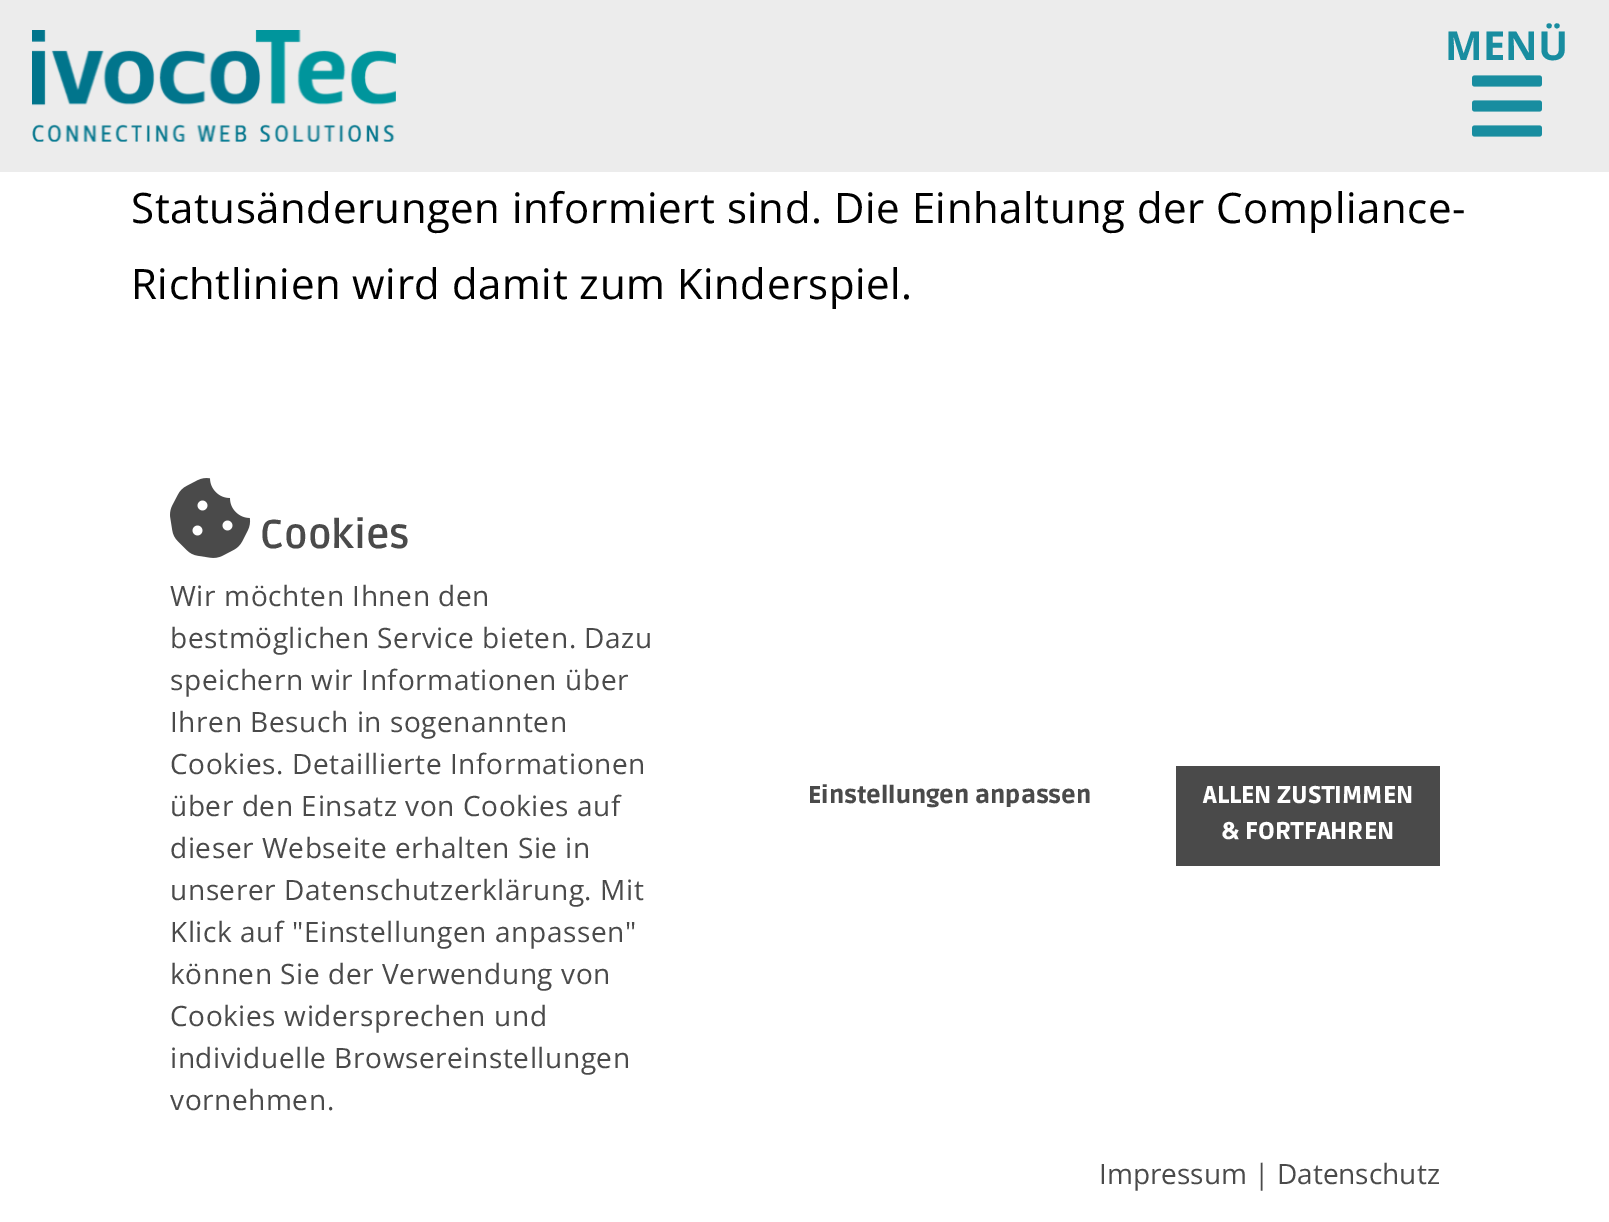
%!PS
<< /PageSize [1609 1222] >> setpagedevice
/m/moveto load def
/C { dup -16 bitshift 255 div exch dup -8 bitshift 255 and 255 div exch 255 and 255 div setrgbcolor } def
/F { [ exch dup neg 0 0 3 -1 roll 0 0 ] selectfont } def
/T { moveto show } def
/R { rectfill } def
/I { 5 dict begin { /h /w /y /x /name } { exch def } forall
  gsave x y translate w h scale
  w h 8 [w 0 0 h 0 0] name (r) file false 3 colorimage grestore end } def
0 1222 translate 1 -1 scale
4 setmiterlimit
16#FFFFFF C
0 0 1609 1222 R
16#ECECEC C
0 0 1609 172 R
(1.rgb) 32 30 364 112 I
/OpenSans-Bold 40 F
16#188DA0 C
(MENÜ) 1445 60 T
(2.rgb) 1472 75 70 62 I
/OpenSans-Regular 42 F
16#000000 C
131 223 m .52 0 (Statusänderungen informiert sind. Die Einhaltung der Compliance-) ashow
131 299 m .52 0 (Richtlinien wird damit zum Kinderspiel.) ashow
(3.rgb) 170 478 81 80 I
/Ruda-Bold 40 F
16#4A4A4A C
(Cookies) 260 548 T
/OpenSans-Regular 28 F
170 606 m .6 0 (Wir möchten Ihnen den) ashow
170 648 m .6 0 (bestmöglichen Service bieten. Dazu) ashow
170 690 m .6 0 (speichern wir Informationen über) ashow
170 732 m .6 0 (Ihren Besuch in sogenannten) ashow
170 774 m .6 0 (Cookies. Detaillierte Informationen) ashow
170 816 m .6 0 (über den Einsatz von Cookies auf) ashow
170 858 m .6 0 (dieser Webseite erhalten Sie in) ashow
170 900 m .6 0 (unserer Datenschutzerklärung. Mit) ashow
170 942 m .6 0 (Klick auf "Einstellungen anpassen") ashow
170 984 m .6 0 (können Sie der Verwendung von) ashow
170 1026 m .6 0 (Cookies widersprechen und) ashow
170 1068 m .6 0 (individuelle Browsereinstellungen) ashow
170 1110 m .6 0 (vornehmen.) ashow
/Ruda-Black 24 F
(Einstellungen anpassen) 808 803 T
1176 766 264 100 R
16#FFFFFF C
(ALLEN ZUSTIMMEN) 1203 803 T
(& FORTFAHREN) 1222 839 T
/OpenSans-Regular 28 F
16#4A4A4A C
(Impressum | Datenschutz) 1099 1184 T
showpage
